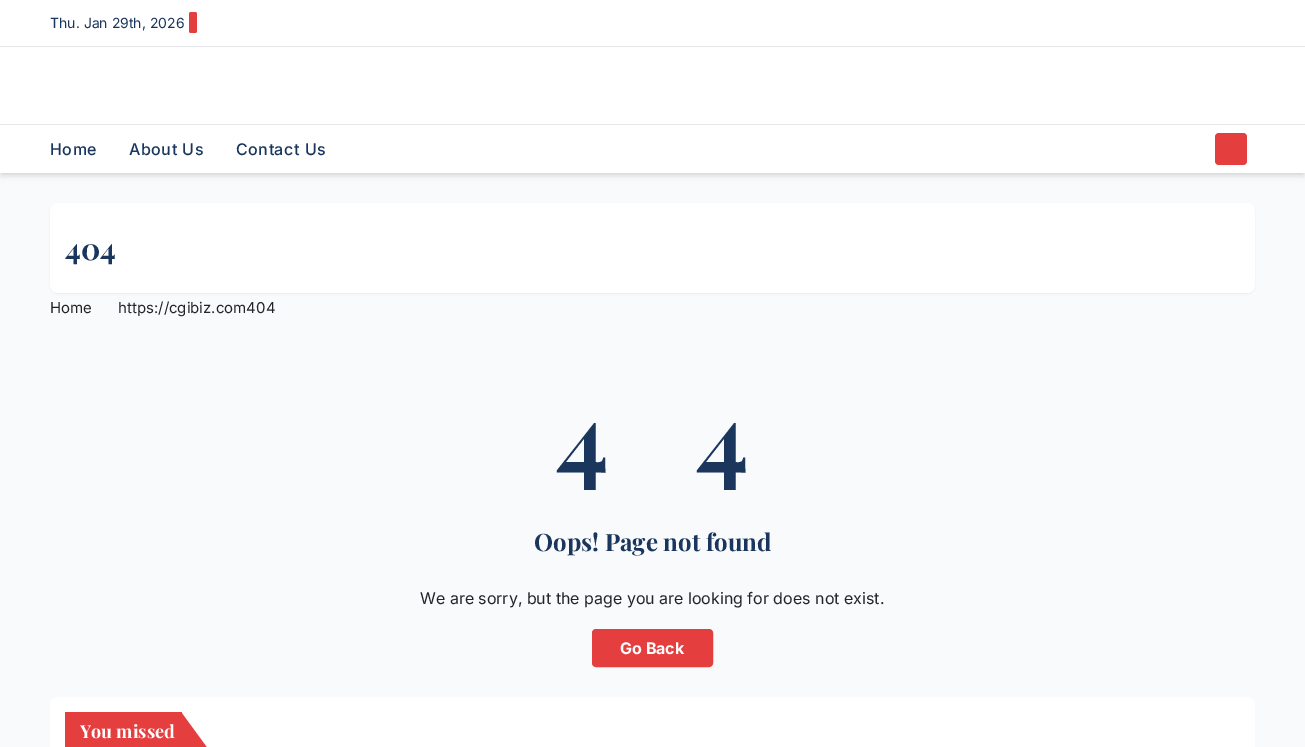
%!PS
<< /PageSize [1305 747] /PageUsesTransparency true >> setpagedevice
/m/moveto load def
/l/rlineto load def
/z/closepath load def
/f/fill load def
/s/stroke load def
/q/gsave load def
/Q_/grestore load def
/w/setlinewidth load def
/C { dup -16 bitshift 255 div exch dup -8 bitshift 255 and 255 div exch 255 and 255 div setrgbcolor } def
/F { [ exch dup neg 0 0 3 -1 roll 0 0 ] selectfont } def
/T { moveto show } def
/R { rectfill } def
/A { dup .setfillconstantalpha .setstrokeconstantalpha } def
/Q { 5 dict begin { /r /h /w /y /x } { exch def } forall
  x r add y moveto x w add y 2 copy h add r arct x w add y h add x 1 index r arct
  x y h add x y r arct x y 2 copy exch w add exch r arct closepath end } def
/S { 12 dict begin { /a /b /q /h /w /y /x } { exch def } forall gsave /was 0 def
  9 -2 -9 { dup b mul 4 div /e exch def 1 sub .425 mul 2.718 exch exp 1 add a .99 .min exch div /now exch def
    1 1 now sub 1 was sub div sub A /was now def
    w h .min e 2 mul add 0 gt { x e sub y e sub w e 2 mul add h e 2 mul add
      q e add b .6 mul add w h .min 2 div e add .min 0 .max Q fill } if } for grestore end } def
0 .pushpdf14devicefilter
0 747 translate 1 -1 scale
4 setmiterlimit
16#F9FAFB C
0 0 1305 747 R
16#000000 C
2 4 1301 169 0 2 .1 S
1 5 1303 171 0 3 .1 S
16#FFFFFF C
0 0 1305 46 R
/Inter-Regular 14 F
16#1A365D C
(Thu. Jan 29th, 2026) 50 28 T
16#E53E3E C
189 12 8 21 2 Q f
16#FFFFFF C
0 47 1305 77 R
16#E5E7EB C
0 46 1305 1 R
0 124 1305 1 R
16#FFFFFF C
0 125 1305 48 R
/Inter-Medium 16 F
16#1A365D C
50 155 m .5 0 (Home) ashow
129 155 m .5 0 (About Us) ashow
236 155 m .5 0 (Contact Us) ashow
16#E53E3E C
1215 133 32 32 4 Q f
16#000000 C
50 204 1205 90 8 1 .05 S
16#FFFFFF C
50 203 1205 90 8 Q f
/PlayfairDisplay-Bold 30 F
16#1A365D C
(404) 65 260 T
/Inter-Regular 15 F
16#222222 C
(Home) 50 313 T
16#212529 C
(https://cgibiz.com404) 118 313 T
/PlayfairDisplay-Bold 100 F
16#1A365D C
(4) 556 476 T
(4) 696 476 T
/PlayfairDisplay-Bold 24 F
(Oops! Page not found) 534 551 T
/Inter-Regular 16 F
16#212529 C
(We are sorry, but the page you are looking for does not exist.) 420 604 T
16#E53E3E C
593 630 119 36 3 Q q f Q_
2 w
s
/Inter-Bold 16 F
16#FFFFFF C
(Go Back) 620 654 T
50 697 1205 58 8 Q f
16#E53E3E C
65 712 117 35 R
/PlayfairDisplay-Bold 18 F
16#FFFFFF C
(You missed) 80 738 T
16#E53E3E C
211 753 m -30 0 l 0 -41 l z f
.poppdf14devicefilter showpage
